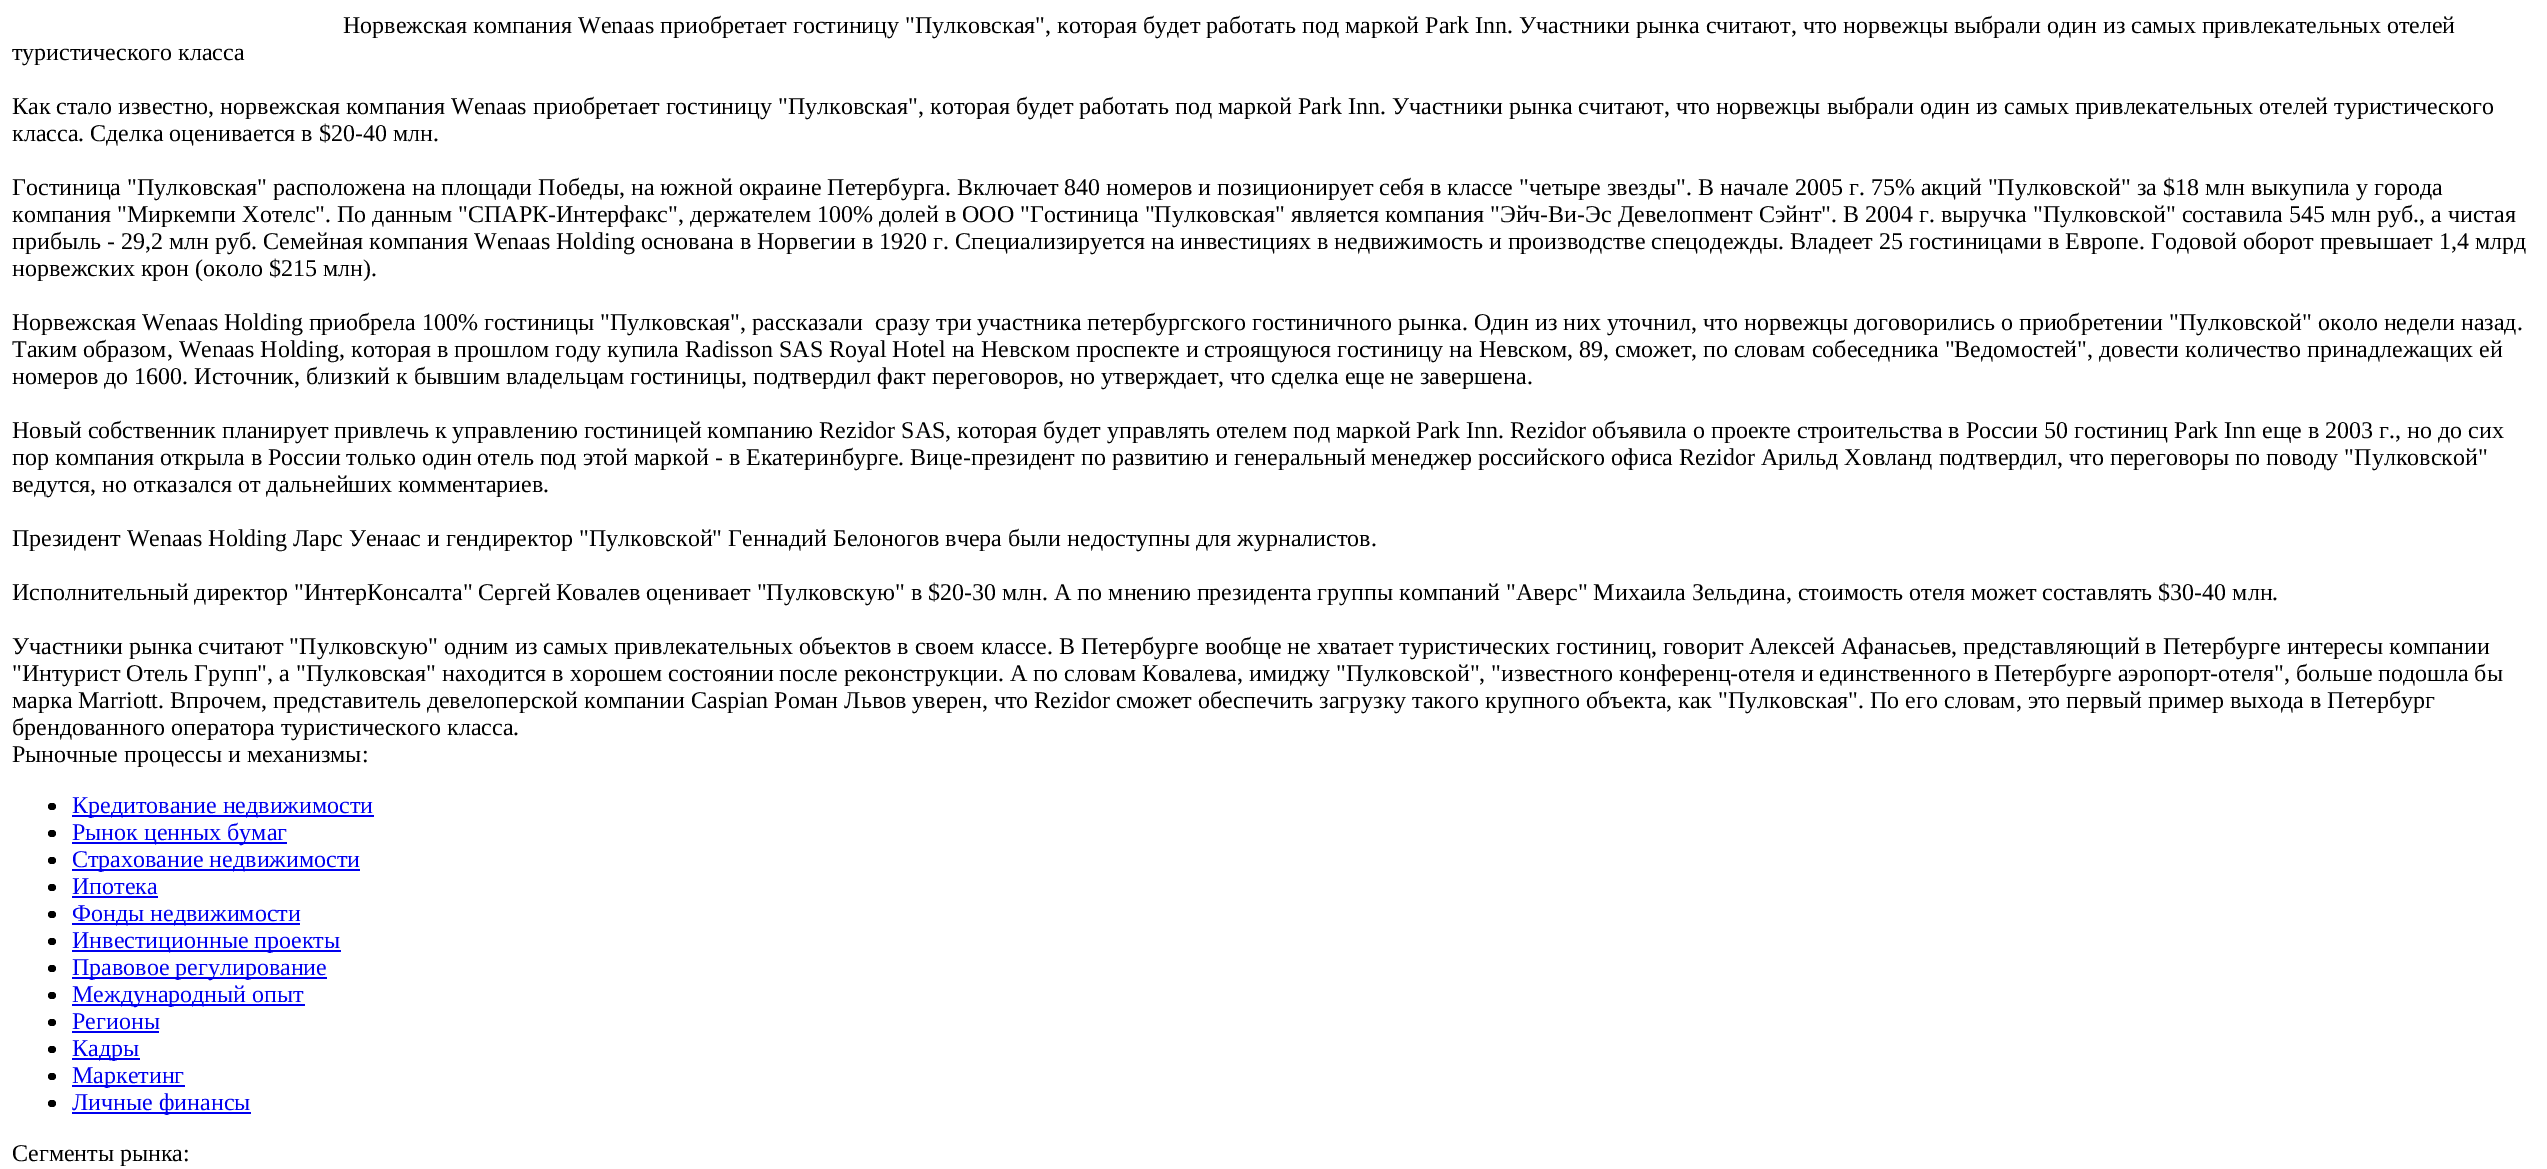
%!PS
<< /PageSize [2547 1169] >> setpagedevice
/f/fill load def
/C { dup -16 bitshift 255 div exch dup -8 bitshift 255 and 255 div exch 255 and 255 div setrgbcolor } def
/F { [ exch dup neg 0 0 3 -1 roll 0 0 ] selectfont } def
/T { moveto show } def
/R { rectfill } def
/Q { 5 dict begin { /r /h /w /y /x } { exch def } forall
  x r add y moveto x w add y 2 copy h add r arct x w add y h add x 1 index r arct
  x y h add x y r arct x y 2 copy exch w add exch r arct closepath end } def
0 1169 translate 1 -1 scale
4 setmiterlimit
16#FFFFFF C
0 0 2547 1169 R
/LiberationSerif-Regular 24 F
16#000000 C
(Норвежская компания Wenaas приобретает гостиницу "Пулковская", которая будет работать под маркой Park Inn. Участники рынка считают, что норвежцы выбрали один из самых привлекательных отелей) 343 33 T
(туристического класса) 12 60 T
(Как стало известно, норвежская компания Wenaas приобретает гостиницу "Пулковская", которая будет работать под маркой Park Inn. Участники рынка считают, что норвежцы выбрали один из самых привлекательных отелей туристического) 12 114 T
(класса. Сделка оценивается в $20-40 млн.) 12 141 T
(Гостиница "Пулковская" расположена на площади Победы, на южной окраине Петербурга. Включает 840 номеров и позиционирует себя в классе "четыре звезды". В начале 2005 г. 75% акций "Пулковской" за $18 млн выкупила у города) 12 195 T
(компания "Миркемпи Хотелс". По данным "СПАРК-Интерфакс", держателем 100% долей в ООО "Гостиница "Пулковская" является компания "Эйч-Ви-Эс Девелопмент Сэйнт". В 2004 г. выручка "Пулковской" составила 545 млн руб., а чистая) 12 222 T
(прибыль - 29,2 млн руб. Семейная компания Wenaas Holding основана в Норвегии в 1920 г. Специализируется на инвестициях в недвижимость и производстве спецодежды. Владеет 25 гостиницами в Европе. Годовой оборот превышает 1,4 млрд) 12 249 T
(норвежских крон \(около $215 млн\).) 12 276 T
(Норвежская Wenaas Holding приобрела 100% гостиницы "Пулковская", рассказали  сразу три участника петербургского гостиничного рынка. Один из них уточнил, что норвежцы договорились о приобретении "Пулковской" около недели назад.) 12 330 T
(Таким образом, Wenaas Holding, которая в прошлом году купила Radisson SAS Royal Hotel на Невском проспекте и строящуюся гостиницу на Невском, 89, сможет, по словам собеседника "Ведомостей", довести количество принадлежащих ей) 12 357 T
(номеров до 1600. Источник, близкий к бывшим владельцам гостиницы, подтвердил факт переговоров, но утверждает, что сделка еще не завершена.) 12 384 T
(Новый собственник планирует привлечь к управлению гостиницей компанию Rezidor SAS, которая будет управлять отелем под маркой Park Inn. Rezidor объявила о проекте строительства в России 50 гостиниц Park Inn еще в 2003 г., но до сих) 12 438 T
(пор компания открыла в России только один отель под этой маркой - в Екатеринбурге. Вице-президент по развитию и генеральный менеджер российского офиса Rezidor Арильд Ховланд подтвердил, что переговоры по поводу "Пулковской") 12 465 T
(ведутся, но отказался от дальнейших комментариев.) 12 492 T
(Президент Wenaas Holding Ларс Уенаас и гендиректор "Пулковской" Геннадий Белоногов вчера были недоступны для журналистов.) 12 546 T
(Исполнительный директор "ИнтерКонсалта" Сергей Ковалев оценивает "Пулковскую" в $20-30 млн. А по мнению президента группы компаний "Аверс" Михаила Зельдина, стоимость отеля может составлять $30-40 млн.) 12 600 T
(Участники рынка считают "Пулковскую" одним из самых привлекательных объектов в своем классе. В Петербурге вообще не хватает туристических гостиниц, говорит Алексей Афанасьев, представляющий в Петербурге интересы компании) 12 654 T
("Интурист Отель Групп", а "Пулковская" находится в хорошем состоянии после реконструкции. А по словам Ковалева, имиджу "Пулковской", "известного конференц-отеля и единственного в Петербурге аэропорт-отеля", больше подошла бы) 12 681 T
(марка Marriott. Впрочем, представитель девелоперской компании Caspian Роман Львов уверен, что Rezidor сможет обеспечить загрузку такого крупного объекта, как "Пулковская". По его словам, это первый пример выхода в Петербург) 12 708 T
(брендованного оператора туристического класса.) 12 735 T
(Рыночные процессы и механизмы:) 12 762 T
48 803 8 7 3.5 Q f
16#0000EE C
72 815 302 2 R
(Кредитование недвижимости) 72 813 T
16#000000 C
48 830 8 7 3.5 Q f
16#0000EE C
72 842 215 2 R
(Рынок ценных бумаг) 72 840 T
16#000000 C
48 857 8 7 3.5 Q f
16#0000EE C
72 869 288 2 R
(Страхование недвижимости) 72 867 T
16#000000 C
48 884 8 7 3.5 Q f
16#0000EE C
(Ипотека) 72 894 T
72 896 86 2 R
16#000000 C
48 911 8 7 3.5 Q f
16#0000EE C
72 923 228 2 R
(Фонды недвижимости) 72 921 T
16#000000 C
48 938 8 7 3.5 Q f
16#0000EE C
72 950 269 2 R
(Инвестиционные проекты) 72 948 T
16#000000 C
48 965 8 7 3.5 Q f
16#0000EE C
72 977 255 2 R
(Правовое регулирование) 72 975 T
16#000000 C
48 992 8 7 3.5 Q f
16#0000EE C
72 1004 233 2 R
(Международный опыт) 72 1002 T
16#000000 C
48 1019 8 7 3.5 Q f
16#0000EE C
(Регионы) 72 1029 T
72 1031 87 2 R
16#000000 C
48 1046 8 7 3.5 Q f
16#0000EE C
72 1058 68 2 R
(Кадры) 72 1056 T
16#000000 C
48 1073 8 7 3.5 Q f
16#0000EE C
72 1085 113 2 R
(Маркетинг) 72 1083 T
16#000000 C
48 1100 8 7 3.5 Q f
16#0000EE C
72 1112 179 2 R
(Личные финансы) 72 1110 T
16#000000 C
(Сегменты рынка:) 12 1161 T
showpage
